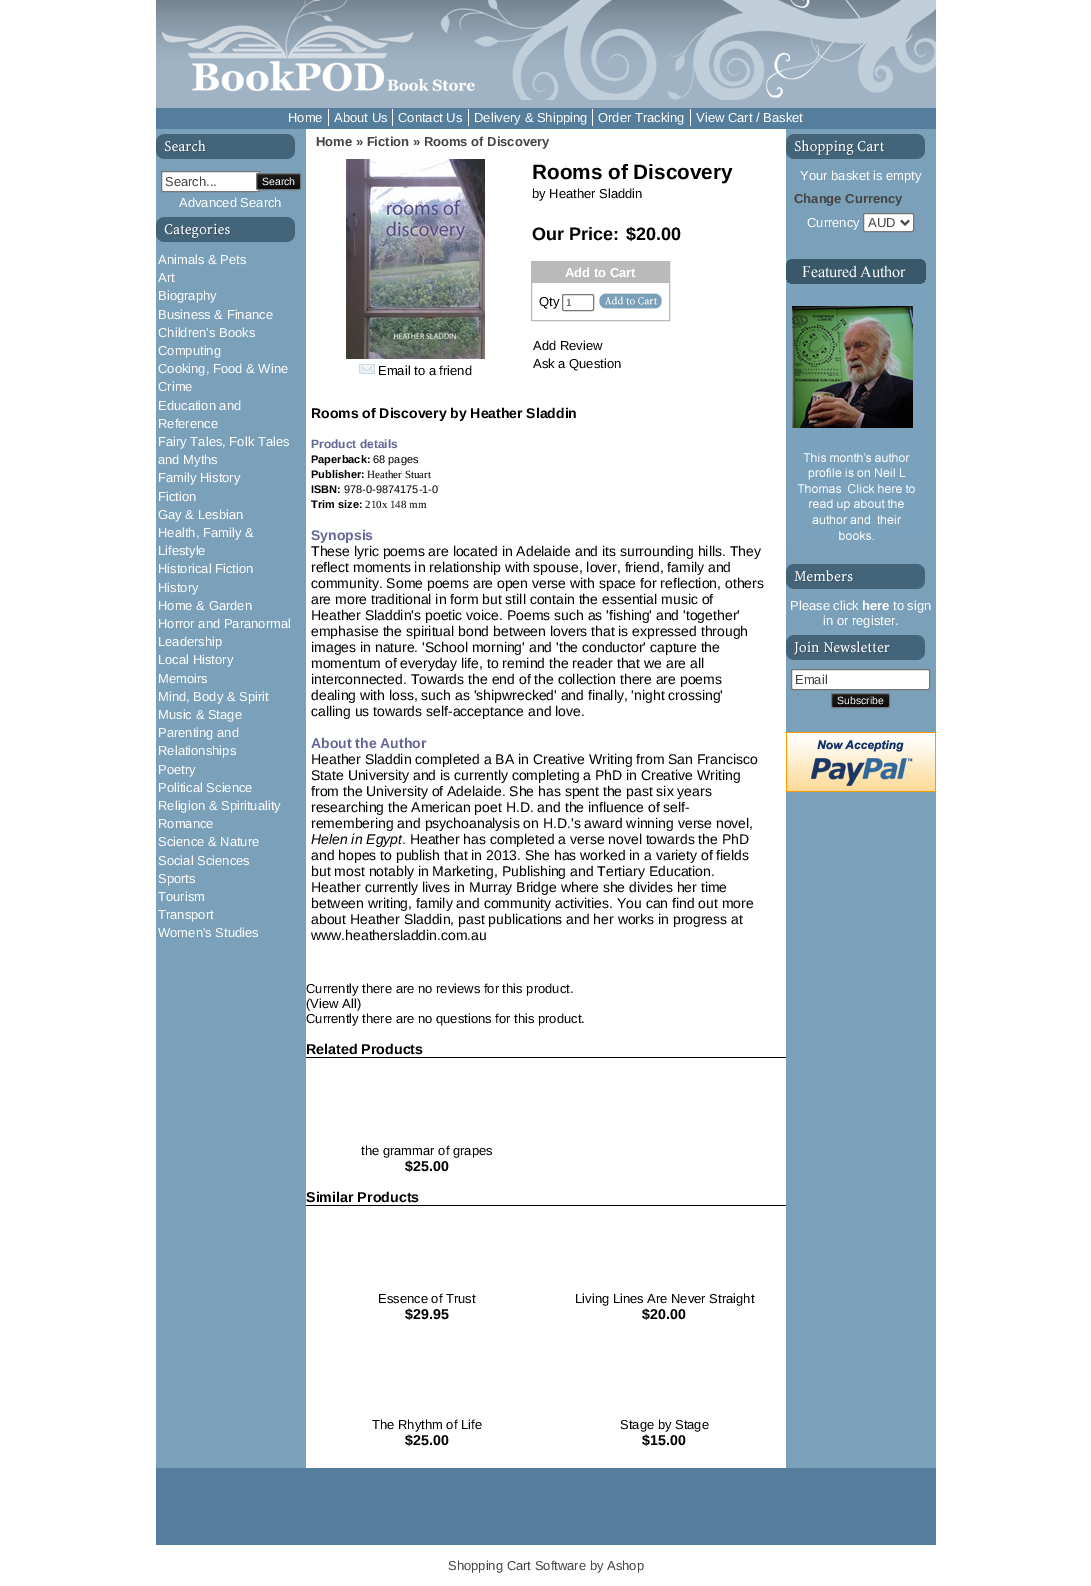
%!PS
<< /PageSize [1091 1586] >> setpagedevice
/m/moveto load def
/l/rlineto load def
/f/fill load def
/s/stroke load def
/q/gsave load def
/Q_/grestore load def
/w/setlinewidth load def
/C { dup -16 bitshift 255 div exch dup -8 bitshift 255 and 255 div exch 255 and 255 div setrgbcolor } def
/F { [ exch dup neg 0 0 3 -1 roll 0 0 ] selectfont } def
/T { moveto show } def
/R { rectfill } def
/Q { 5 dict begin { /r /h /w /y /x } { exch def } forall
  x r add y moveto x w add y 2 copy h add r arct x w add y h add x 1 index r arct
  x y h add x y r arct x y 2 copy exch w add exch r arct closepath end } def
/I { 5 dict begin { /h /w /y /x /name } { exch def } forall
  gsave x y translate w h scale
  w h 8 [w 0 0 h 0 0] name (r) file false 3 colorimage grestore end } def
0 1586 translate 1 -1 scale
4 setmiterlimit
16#FFFFFF C
0 0 1091 1586 R
16#9FB3C4 C
156 100 780 8 R
(1.rgb) 156 0 780 100 I
16#547E9B C
156 108 780 21 R
/LiberationSans-Regular 13 F
16#FFFFFF C
(Home) 288 122 T
328 109 1 17 R
(About Us) 334 122 T
392 109 1 17 R
(Contact Us) 398 122 T
468 109 1 17 R
(Delivery & Shipping) 474 122 T
592 109 1 17 R
(Order Tracking) 598 122 T
690 109 1 17 R
(View Cart / Basket) 696 122 T
16#7BA0B9 C
156 129 150 1339 R
(2.rgb) 156 134 139 25 I
16#FFFFFF C
161.5 171.5 98 20 1.5 Q q f Q_
16#767676 C
s
16#444444 C
(Search...) 165 186 T
16#000000 C
256 173 45 17 2 Q f
(3.rgb) 256 173 45 17 I
16#777777 C
256.5 173.5 44 16 1.5 Q s
/LiberationSans-Regular 10.5 F
16#FFFFFF C
(Search) 262 185 T
/LiberationSans-Regular 13 F
(Advanced Search) 179 207 T
(4.rgb) 156 217 139 25 I
(Animals & Pets) 158 264 T
(Art) 158 282 T
(Biography) 158 300 T
(Business & Finance) 158 319 T
(Children's Books) 158 337 T
(Computing) 158 355 T
(Cooking, Food & Wine) 158 373 T
(Crime) 158 391 T
(Education and) 158 410 T
(Reference) 158 428 T
(Fairy Tales, Folk Tales) 158 446 T
(and Myths) 158 464 T
(Family History) 158 482 T
(Fiction) 158 501 T
(Gay & Lesbian) 158 519 T
(Health, Family &) 158 537 T
(Lifestyle) 158 555 T
(Historical Fiction) 158 573 T
(History) 158 592 T
(Home & Garden) 158 610 T
(Horror and Paranormal) 158 628 T
(Leadership) 158 646 T
(Local History) 158 664 T
(Memoirs) 158 683 T
(Mind, Body & Spirit) 158 701 T
(Music & Stage) 158 719 T
(Parenting and) 158 737 T
(Relationships) 158 755 T
(Poetry) 158 774 T
(Political Science) 158 792 T
(Religion & Spirituality) 158 810 T
(Romance) 158 828 T
(Science & Nature) 158 846 T
(Social Sciences) 158 865 T
(Sports) 158 883 T
(Tourism) 158 901 T
(Transport) 158 919 T
(Women's Studies) 158 937 T
/LiberationSans-Bold 13 F
16#444444 C
(Home » Fiction » Rooms of Discovery) 316 146 T
(5.rgb) 346 159 139 200 I
(6.rgb) 359 364 16 10 I
/LiberationSans-Regular 13 F
16#000000 C
(Email to a friend) 378 375 T
/LiberationSans-Bold 20.75 F
(Rooms of Discovery) 532 179 T
/LiberationSans-Regular 13 F
(by Heather Sladdin) 532 198 T
/LiberationSans-Bold 18 F
(Our Price:) 532 240 T
($20.00) 626 240 T
16#BABABA C
531.5 261.5 138 59 rectstroke
532 262 137 21 R
/LiberationSans-Bold 13 F
16#FFFFFF C
(Add to Cart) 565 277 T
/LiberationSans-Regular 13 F
16#000000 C
(Qty) 539 306 T
16#767676 C
562.5 294.5 31 16 1.5 Q s
/LiberationSans-Regular 10 F
16#444444 C
(1) 566 306 T
(7.rgb) 599 293 63 16 I
/LiberationSans-Regular 13 F
16#000000 C
(Add Review) 533 350 T
(Ask a Question) 533 368 T
/LiberationSans-Bold 14 F
(Rooms of Discovery by Heather Sladdin) 311 418 T
/LiberationSans-Bold 12 F
16#666699 C
(Product details) 311 448 T
/LiberationSans-Bold 11 F
16#000000 C
(Paperback:) 311 463 T
/LiberationSans-Regular 11 F
(68 pages) 373 463 T
/LiberationSans-Bold 11 F
(Publisher:) 311 478 T
/LiberationSerif-Regular 11 F
(Heather Stuart) 367 478 T
/LiberationSans-Bold 11 F
(ISBN:) 311 493 T
/LiberationSans-Regular 11 F
(978-0-9874175-1-0) 344 493 T
/LiberationSans-Bold 11 F
(Trim size:) 311 508 T
/LiberationSerif-Regular 11 F
(210x 148 mm) 365 508 T
/LiberationSans-Bold 14 F
16#666699 C
(Synopsis) 311 540 T
/LiberationSans-Regular 14 F
16#000000 C
(These lyric poems are located in Adelaide and its surrounding hills. They) 311 556 T
(reflect moments in relationship with spouse, lover, friend, family and) 311 572 T
(community. Some poems are open verse with space for reflection, others) 311 588 T
(are more traditional in form but still contain the essential music of) 311 604 T
(Heather Sladdin's poetic voice. Poems such as 'fishing' and 'together') 311 620 T
(emphasise the spiritual bond between lovers that is expressed through) 311 636 T
(images in nature. 'School morning' and 'the conductor' capture the) 311 652 T
(momentum of everyday life, to remind the reader that we are all) 311 668 T
(interconnected. Towards the end of the collection there are poems) 311 684 T
(dealing with loss, such as 'shipwrecked' and finally, 'night crossing') 311 700 T
(calling us towards self-acceptance and love.) 311 716 T
/LiberationSans-Bold 14 F
16#666699 C
(About the Author) 311 748 T
/LiberationSans-Regular 14 F
16#000000 C
(Heather Sladdin completed a BA in Creative Writing from San Francisco) 311 764 T
(State University and is currently completing a PhD in Creative Writing) 311 780 T
(from the University of Adelaide. She has spent the past six years) 311 796 T
(researching the American poet H.D. and the influence of self-) 311 812 T
(remembering and psychoanalysis on H.D.'s award winning verse novel,) 311 828 T
/LiberationSans-Italic 14 F
(Helen in Egypt) 311 844 T
/LiberationSans-Regular 14 F
(. Heather has completed a verse novel towards the PhD) 402 844 T
(and hopes to publish that in 2013. She has worked in a variety of fields) 311 860 T
(but most notably in Marketing, Publishing and Tertiary Education.) 311 876 T
(Heather currently lives in Murray Bridge where she divides her time) 311 892 T
(between writing, family and community activities. You can find out more) 311 908 T
(about Heather Sladdin, past publications and her works in progress at) 311 924 T
(www.heathersladdin.com.au) 311 940 T
/LiberationSans-Regular 13 F
(Currently there are no reviews for this product.) 306 993 T
(\(View All\)) 306 1008 T
(Currently there are no questions for this product.) 306 1023 T
306 1057 480 1 R
/LiberationSans-Bold 14.25 F
(Related Products) 306 1054 T
/LiberationSans-Regular 13 F
(the grammar of grapes) 361 1155 T
/LiberationSans-Bold 14.25 F
($25.00) 405 1171 T
306 1205 480 1 R
(Similar Products) 306 1202 T
/LiberationSans-Regular 13 F
(Essence of Trust) 378 1303 T
/LiberationSans-Bold 14.25 F
($29.95) 405 1319 T
/LiberationSans-Regular 13 F
(Living Lines Are Never Straight) 575 1303 T
/LiberationSans-Bold 14.25 F
($20.00) 642 1319 T
/LiberationSans-Regular 13 F
(The Rhythm of Life) 372 1429 T
/LiberationSans-Bold 14.25 F
($25.00) 405 1445 T
/LiberationSans-Regular 13 F
(Stage by Stage) 620 1429 T
/LiberationSans-Bold 14.25 F
($15.00) 642 1445 T
16#7BA0B9 C
786 129 150 1339 R
(8.rgb) 786 134 139 25 I
/LiberationSans-Regular 13 F
16#FFFFFF C
(Your basket is empty) 800 180 T
/LiberationSans-Bold 13 F
16#444444 C
(Change Currency) 794 203 T
/LiberationSans-Regular 13 F
16#FFFFFF C
(Currency) 807 227 T
863.5 213.5 50 18 1.5 Q q f Q_
16#767676 C
s
16#444444 C
2 w
901 220.5 m 4 4 l 4 -4 l s
(AUD) 868 227 T
(9.rgb) 786 259 140 281 I
(10.rgb) 786 564 139 25 I
16#FFFFFF C
(Please click) 790 610 T
/LiberationSans-Bold 13 F
(here) 862 610 T
/LiberationSans-Regular 13 F
(to sign) 893 610 T
(in or register.) 823 625 T
(11.rgb) 786 635 139 25 I
791.5 669.5 138 20 1.5 Q q f Q_
16#767676 C
1 w
s
16#444444 C
(Email) 795 684 T
16#000000 C
831 693 59 15 2 Q f
(12.rgb) 831 693 59 15 I
16#777777 C
831.5 693.5 58 14 1.5 Q s
/LiberationSans-Regular 10.5 F
16#FFFFFF C
(Subscribe) 837 704 T
(13.rgb) 786 732 150 60 I
16#547E9B C
156 1468 780 77 R
/LiberationSans-Regular 13 F
16#444444 C
(Shopping Cart Software by Ashop) 448 1570 T
showpage
